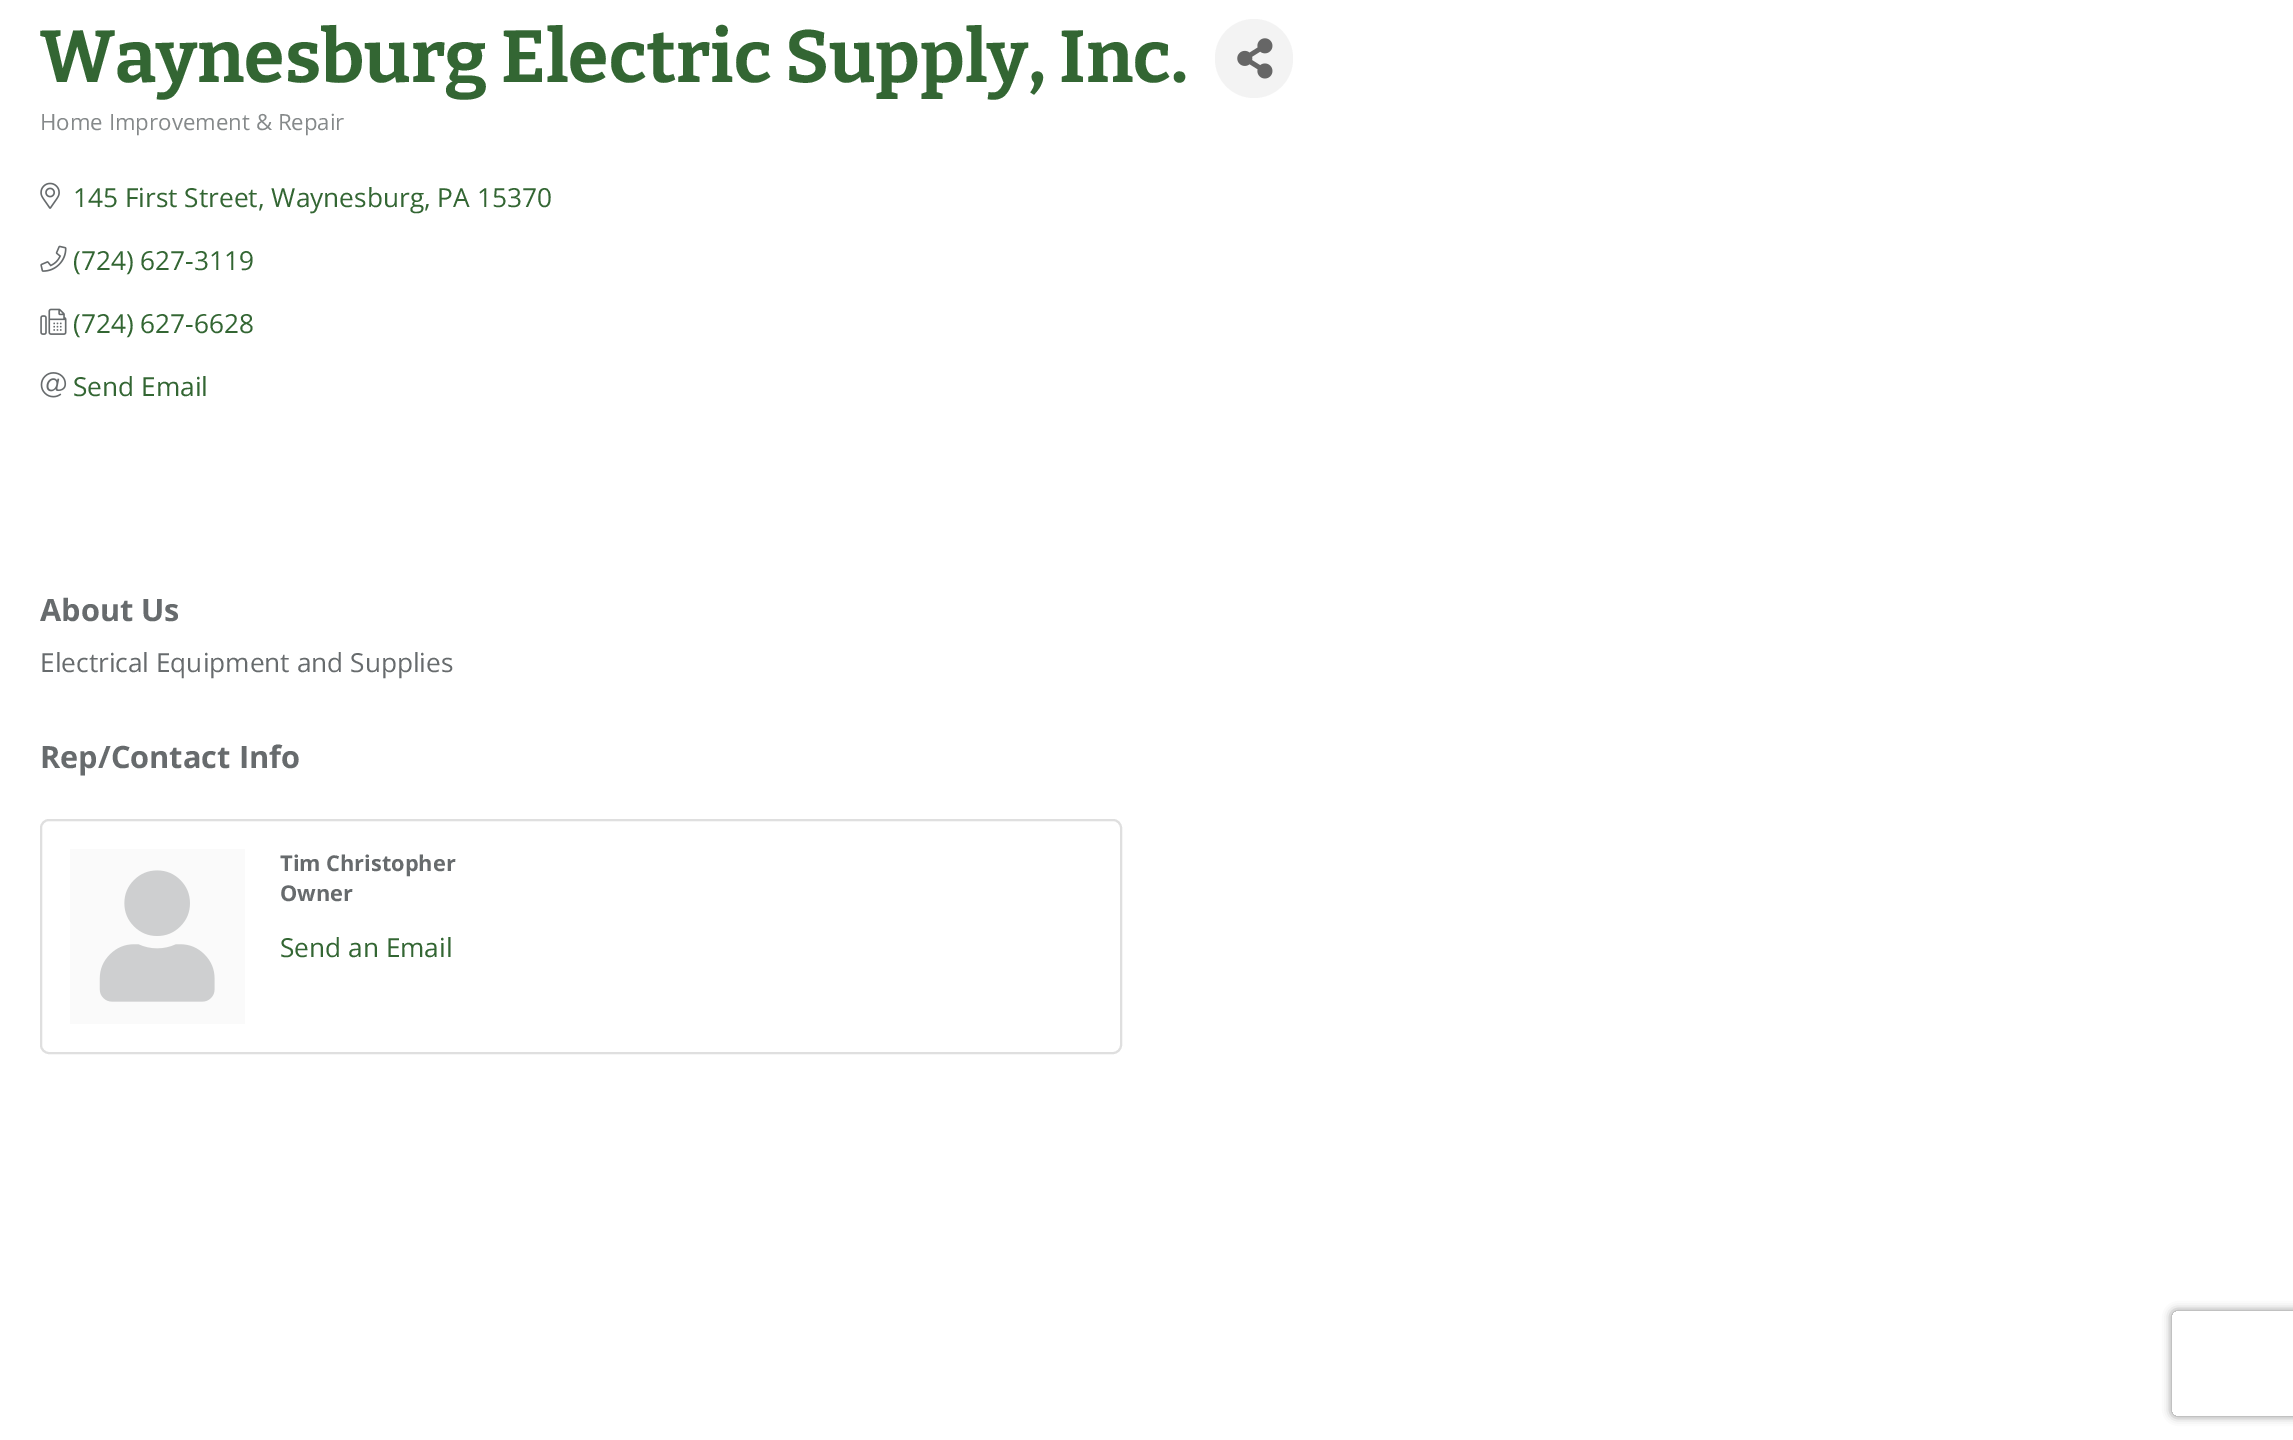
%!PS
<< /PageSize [2293 1440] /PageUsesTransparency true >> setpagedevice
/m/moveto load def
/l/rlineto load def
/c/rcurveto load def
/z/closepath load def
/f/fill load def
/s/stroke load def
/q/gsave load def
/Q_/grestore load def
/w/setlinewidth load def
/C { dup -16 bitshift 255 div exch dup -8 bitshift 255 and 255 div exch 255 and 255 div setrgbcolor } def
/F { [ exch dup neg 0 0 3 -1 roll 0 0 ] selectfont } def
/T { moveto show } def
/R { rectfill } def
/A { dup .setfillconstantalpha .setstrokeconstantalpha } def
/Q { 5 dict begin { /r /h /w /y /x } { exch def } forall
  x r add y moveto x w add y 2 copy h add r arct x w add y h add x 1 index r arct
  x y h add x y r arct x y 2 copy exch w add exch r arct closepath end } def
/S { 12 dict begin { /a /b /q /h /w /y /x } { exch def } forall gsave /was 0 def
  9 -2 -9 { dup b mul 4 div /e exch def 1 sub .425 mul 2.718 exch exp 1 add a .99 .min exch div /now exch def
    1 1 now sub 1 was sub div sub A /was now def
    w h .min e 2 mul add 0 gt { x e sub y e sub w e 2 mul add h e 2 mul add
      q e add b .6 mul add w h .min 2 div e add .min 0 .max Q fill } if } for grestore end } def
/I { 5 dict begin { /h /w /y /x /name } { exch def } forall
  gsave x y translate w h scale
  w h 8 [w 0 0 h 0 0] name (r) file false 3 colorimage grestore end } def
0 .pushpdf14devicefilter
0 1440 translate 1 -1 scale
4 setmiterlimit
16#FFFFFF C
0 0 2293 1440 R
/Bitter-Bold 73.5 F
16#336633 C
(Waynesburg Electric Supply, Inc.) 40 82 T
16#F3F3F3 C
1215 19 78 79 39 Q f
(1.rgb) 1237 38 36 41 I
/OpenSans-Regular 22.25 F
16#85898A C
(Home Improvement & Repair) 40 130 T
(2.rgb) 40 182 20 27 I
/OpenSans-Regular 26.25 F
16#336633 C
(145 First Street, Waynesburg, PA 15370) 73 207 T
(3.rgb) 40 245 27 27 I
(\(724\) 627-3119) 73 270 T
(4.rgb) 40 308 27 27 I
(\(724\) 627-6628) 73 333 T
(5.rgb) 40 372 27 26 I
(Send Email) 73 396 T
/OpenSans-Bold 30.75 F
16#676B6D C
(About Us) 40 621 T
/OpenSans-Regular 26.25 F
(Electrical Equipment and Supplies) 40 672 T
/OpenSans-Bold 30.75 F
(Rep/Contact Info) 40 768 T
16#DFDFDF C
2 w
41 820 1080 233 8 Q s
16#FAFAFA C
70 849 175 175 R
(6.rgb) 99 870 116 132 I
/OpenSans-Bold 21.75 F
16#676B6D C
(Tim Christopher) 280 871 T
(Owner) 280 901 T
/OpenSans-Regular 26.25 F
16#336633 C
(Send an Email) 280 957 T
q
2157 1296 m 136 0 l 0 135 l -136 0 l z 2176 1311 m 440 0 l 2 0 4 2 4 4 c 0 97 l 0 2 -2 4 -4 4 c -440 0 l -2 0 -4 -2 -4 -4 c 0 -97 l 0 -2 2 -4 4 -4 c z eoclip newpath
16#808080 C
2172 1311 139 105 4 4.5 1 S
Q_
.poppdf14devicefilter showpage
